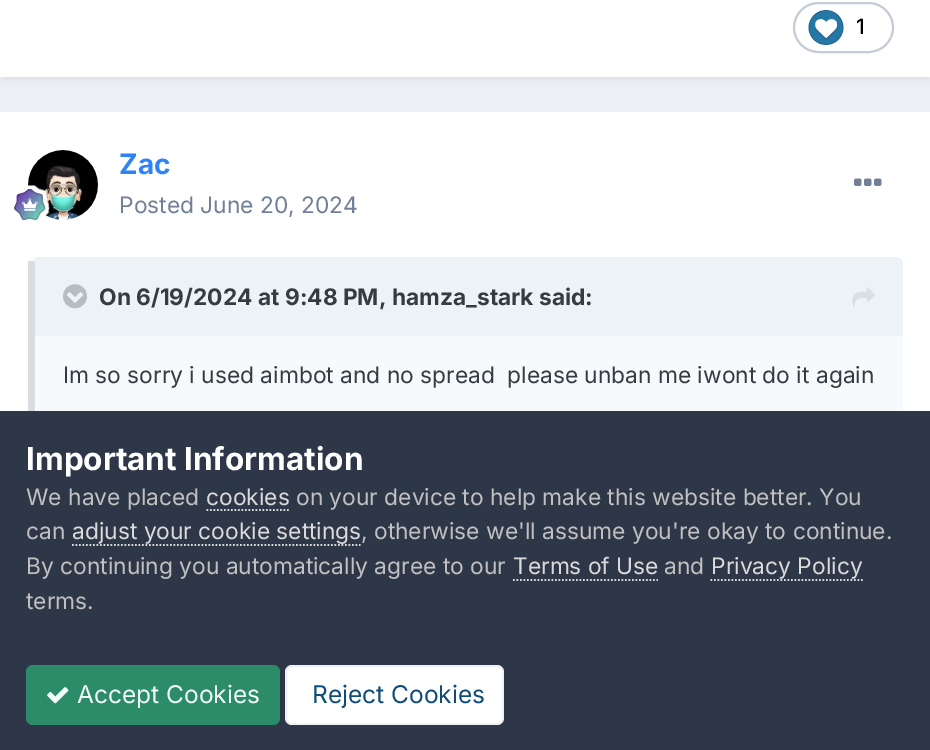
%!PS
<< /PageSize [930 750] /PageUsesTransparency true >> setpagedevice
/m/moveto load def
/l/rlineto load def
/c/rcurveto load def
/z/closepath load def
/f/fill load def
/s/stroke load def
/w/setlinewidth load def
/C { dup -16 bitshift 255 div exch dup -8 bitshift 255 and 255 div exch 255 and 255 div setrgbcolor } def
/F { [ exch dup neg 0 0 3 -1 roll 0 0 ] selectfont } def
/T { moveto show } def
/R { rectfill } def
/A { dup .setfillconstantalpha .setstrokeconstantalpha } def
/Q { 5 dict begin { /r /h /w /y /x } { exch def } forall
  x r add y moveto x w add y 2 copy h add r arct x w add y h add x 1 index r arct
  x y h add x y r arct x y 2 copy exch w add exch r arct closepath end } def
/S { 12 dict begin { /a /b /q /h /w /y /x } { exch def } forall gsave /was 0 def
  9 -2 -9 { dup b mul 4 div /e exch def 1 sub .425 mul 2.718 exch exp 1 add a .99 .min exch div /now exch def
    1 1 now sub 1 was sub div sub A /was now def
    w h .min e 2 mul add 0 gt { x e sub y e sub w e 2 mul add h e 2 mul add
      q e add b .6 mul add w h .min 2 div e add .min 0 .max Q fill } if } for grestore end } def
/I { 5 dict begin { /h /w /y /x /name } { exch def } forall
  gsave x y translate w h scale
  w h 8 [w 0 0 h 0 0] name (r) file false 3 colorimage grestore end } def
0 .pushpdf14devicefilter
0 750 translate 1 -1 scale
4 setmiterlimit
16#EDF0F4 C
0 0 930 750 R
16#2D3748 C
2 -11 927 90 0 3.5 .1 S
16#FFFFFF C
0 0 930 77 R
16#C6CCD5 C
2 w
794 3 99 49 24.5 Q s
(1.rgb) 808 10 36 35 I
/Inter-Medium 21 F
16#000000 C
(1) 856 34 T
16#FFFFFF C
0 112 930 299 R
(2.rgb) 28 150 70 70 I
(3.rgb) 14 185 36 35 I
/Inter-Bold 28 F
16#2F83F5 C
(Zac) 119 174 T
/Inter-Regular 22.75 F
16#718096 C
(Posted June 20, 2024) 119 213 T
(4.rgb) 854 178 28 8 I
16#F7FAFC C
28 257 875 202 7 Q f
0.15 A
16#2D3748 C
28 261 7 150 R
1 A
16#EDF2F7 C
35 257 m 861 0 l 4 0 7 3 7 7 c 0 72 l -868 0 l z f
(5.rgb) 63 284 24 25 I
/Inter-Bold 22.75 F
16#353C41 C
(On 6/19/2024 at 9:48 PM, hamza_stark said:) 99 305 T
(6.rgb) 852 287 23 21 I
/Inter-Regular 22.75 F
(Im so sorry i used aimbot and no spread  please unban me iwont do it again) 63 383 T
16#2D3748 C
0 411 930 339 R
/Inter-Bold 31.5 F
16#FFFFFF C
(Important Information) 26 470 T
/Inter-Regular 22.75 F
16#C0C0C0 C
(We have placed) 26 505 T
16#DADADA C
(cookies) 206 505 T
1.8 w
[1.75 1.75] 0 setdash
206.5 510 m 82.5 0 l s
16#C0C0C0 C
(on your device to help make this website better. You) 296 505 T
(can) 26 539 T
16#DADADA C
(adjust your cookie settings) 72 539 T
72 545 m 288.5 0 l s
16#C0C0C0 C
(, otherwise we'll assume you're okay to continue.) 361 539 T
(By continuing you automatically agree to our) 26 574 T
16#DADADA C
(Terms of Use) 513 574 T
513 580 m 145 0 l s
16#C0C0C0 C
(and) 664 574 T
16#DADADA C
(Privacy Policy) 711 574 T
710.5 580 m 152.5 0 l s
16#C0C0C0 C
(terms.) 26 609 T
16#2C8C69 C
26 665 254 60 7 Q f
(7.rgb) 47 687 22 17 I
/Inter-Regular 24.5 F
16#F0FAF6 C
(Accept Cookies) 77 703 T
16#FFFFFF C
285 665 219 60 7 Q f
0.07 A
16#0E4C79 C
2 w
[] 0 setdash
286 666 217 58 6 Q s
1 A
(Reject Cookies) 312 703 T
.poppdf14devicefilter showpage
